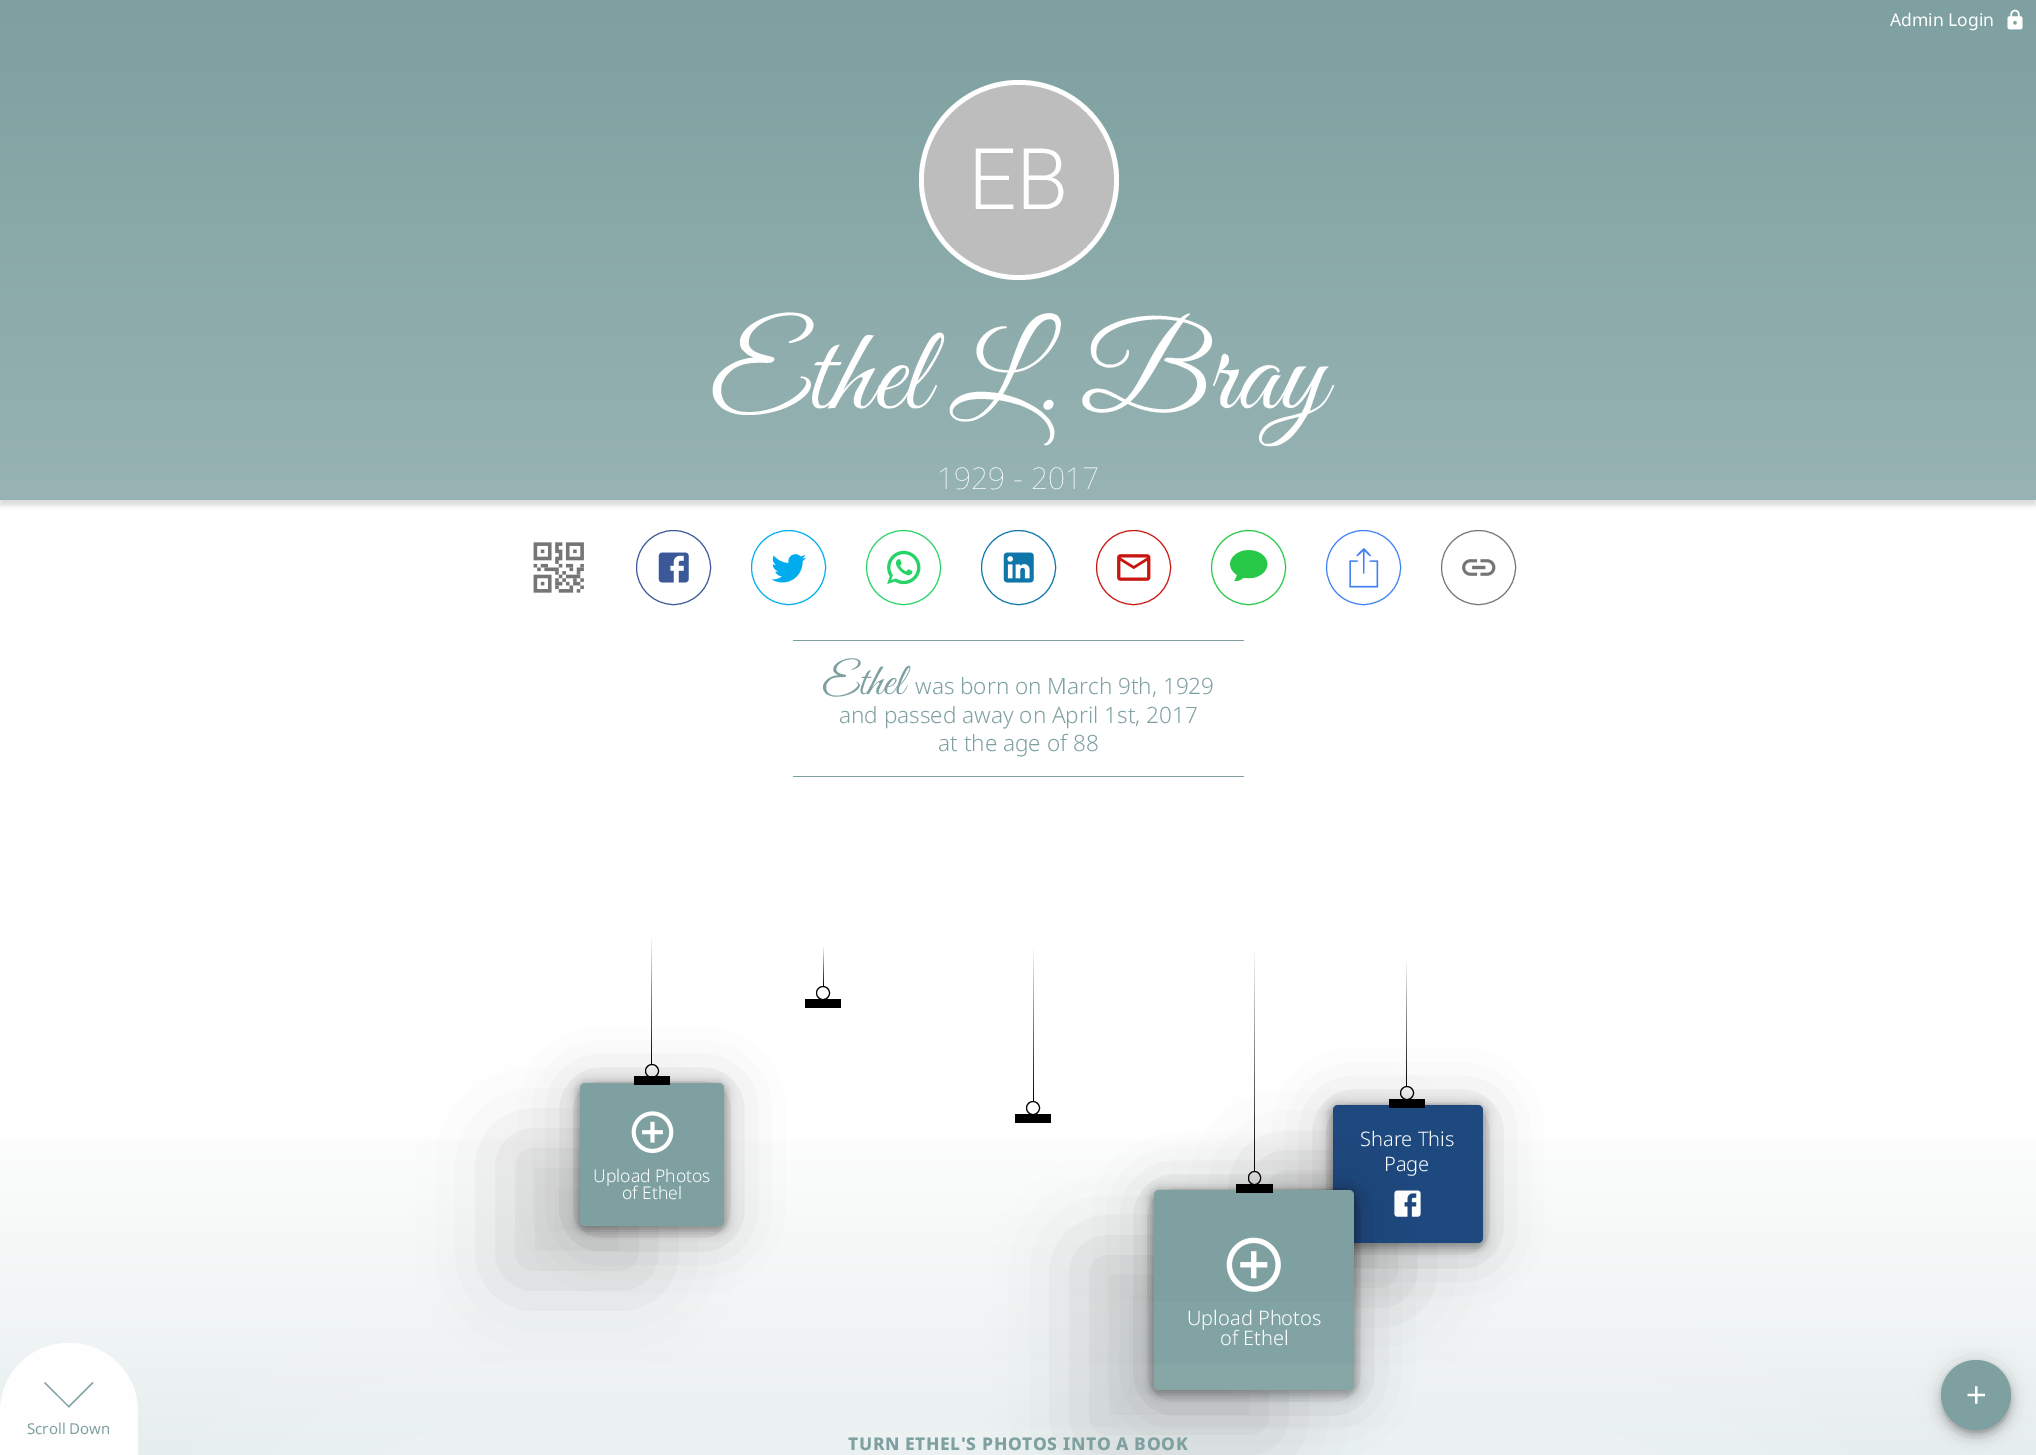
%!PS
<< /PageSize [2036 1455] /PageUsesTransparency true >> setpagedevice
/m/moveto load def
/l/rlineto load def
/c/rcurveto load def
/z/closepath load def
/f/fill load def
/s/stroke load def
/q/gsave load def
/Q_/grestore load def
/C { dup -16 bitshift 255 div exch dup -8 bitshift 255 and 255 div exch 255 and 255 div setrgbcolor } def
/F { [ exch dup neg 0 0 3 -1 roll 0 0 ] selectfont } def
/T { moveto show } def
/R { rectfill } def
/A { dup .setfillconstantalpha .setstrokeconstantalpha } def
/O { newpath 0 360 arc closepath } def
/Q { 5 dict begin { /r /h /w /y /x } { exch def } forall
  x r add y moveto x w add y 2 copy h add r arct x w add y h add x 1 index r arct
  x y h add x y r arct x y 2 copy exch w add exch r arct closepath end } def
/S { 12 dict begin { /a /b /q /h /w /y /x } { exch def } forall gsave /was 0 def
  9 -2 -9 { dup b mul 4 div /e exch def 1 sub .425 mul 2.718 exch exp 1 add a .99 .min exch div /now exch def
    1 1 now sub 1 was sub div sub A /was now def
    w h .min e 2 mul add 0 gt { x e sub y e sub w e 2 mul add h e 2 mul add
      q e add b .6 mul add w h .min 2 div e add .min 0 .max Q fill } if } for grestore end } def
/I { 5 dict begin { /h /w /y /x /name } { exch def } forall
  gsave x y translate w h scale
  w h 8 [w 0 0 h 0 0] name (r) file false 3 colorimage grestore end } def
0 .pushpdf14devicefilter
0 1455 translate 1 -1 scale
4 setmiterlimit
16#FFFFFF C
0 0 2036 1455 R
16#000000 C
0 5 2036 500 0 2.5 .15 S
q 0 0 m 2036 0 l 0 500 l -2036 0 l z clip newpath
<< /ShadingType 2 /ColorSpace /DeviceRGB /Coords [1018 0 1018 500] /Extend [true true] /Function << /FunctionType 2 /Domain [0 1] /C0 [.494 .627 .627] /C1 [.592 .702 .702] /N 1 >> >> shfill Q_
/NotoSans-Regular 17.5 F
16#FFFFFF C
(Admin Login) 1890 26 T
(1.rgb) 2007 9 16 21 I
1019 180 100 O f
16#BDBDBD C
1019 180 95 O f
/Roboto-Light 85 F
16#FFFFFF C
(EB) 968 209 T
/GreatVibes-Regular 120 F
(Ethel L. Bray) 710 408 T
/NotoSans-Thin 30 F
(1929 - 2017) 937 489 T
q 0 1140 m 2036 0 l 0 315 l -2036 0 l z clip newpath
<< /ShadingType 2 /ColorSpace /DeviceRGB /Coords [1018 827 1018 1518] /Extend [true true] /Function << /FunctionType 3 /Domain [0 1] /Functions [<< /FunctionType 2 /Domain [0 1] /C0 [1 1 1] /C1 [1 1 1] /N 1 >> << /FunctionType 2 /Domain [0 1] /C0 [1 1 1] /C1 [.89 .922 .922] /N 1 >>] /Bounds [.4] /Encode [0 1 0 1] >> >> shfill Q_
16#000000 C
805 999 36 9 R
580 1088 144 143 5 27.5 .25 S
505 1138 144 143 5 40 .15 S
578 1083 148 148 8 5 .35 S
16#7EA0A0 C
580 1083 144 143 5 Q f
16#000000 C
1333 1110 150 138 5 27.5 .25 S
1258 1160 150 138 5 40 .15 S
1330 1105 155 143 8 5 .35 S
16#1E497E C
1333 1105 150 138 5 Q f
(12.rgb) 1394 1190 27 27 I
16#000000 C
1154 1195 200 200 5 27.5 .25 S
1079 1245 200 200 5 40 .15 S
1151 1190 205 205 8 5 .35 S
16#7EA0A0 C
1154 1190 200 200 5 Q f
(13.rgb) 1226 1237 55 55 I
16#FFFFFF C
409 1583 1220 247 0 125 1 S
0.94 A
68.5 1343 m 1 0 l 38 0 68.5 30.5 68.5 68.5 c 0 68.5 l -138 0 l 0 -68.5 l 0 -38 30.5 -68.5 68.5 -68.5 c z f
1 A
16#7EA0A0 C
68 1406.5 m 24.5 -24.5 l 1 1 l -24.5 24.5 l z f
44 1383 m 1 -1 l 24.5 24.5 l -.5 1 l z f
/NotoSans-Regular 15 F
(Scroll Down) 27 1434 T
(2.rgb) 533 542 51 51 I
16#3B5998 C
673.5 567.5 37 O s
(3.rgb) 658 552 31 31 I
16#00ACEE C
788.5 567.5 37 O s
(4.rgb) 771 554 35 29 I
16#25D366 C
903.5 567.5 37 O s
(5.rgb) 887 550 34 35 I
16#0E76A8 C
1018.5 567.5 37 O s
(6.rgb) 1003 552 31 31 I
16#C71610 C
1133.5 567.5 37 O s
(7.rgb) 1117 554 34 27 I
16#27C848 C
1248.5 567.5 37 O s
(8.rgb) 1230 550 38 32 I
16#3E80F5 C
1363.5 567.5 37 O s
(9.rgb) 1349 548 30 40 I
16#757575 C
1478.5 567.5 37 O s
(10.rgb) 1462 559 34 17 I
16#7EA0A0 C
793 640 451 1 R
793 776 451 1 R
/GreatVibes-Regular 45 F
(Ethel) 822 694 T
/NotoSans-Light 22.5 F
(was born on March 9th, 1929) 915 694 T
(and passed away on April 1st, 2017) 839 723 T
(at the age of 88) 938 751 T
q 823 946 m 1 0 l 0 40 l -1 0 l z clip newpath
<< /ShadingType 2 /ColorSpace /DeviceRGB /Coords [823 946 823 986] /Extend [true true] /Function << /FunctionType 2 /Domain [0 1] /C0 [1 1 1] /C1 [0 0 0] /N 1 >> >> shfill Q_
16#000000 C
823 993 6.5 O s
q 1033 946 m 1 0 l 0 155 l -1 0 l z clip newpath
<< /ShadingType 2 /ColorSpace /DeviceRGB /Coords [1033 946 1033 1101] /Extend [true true] /Function << /FunctionType 2 /Domain [0 1] /C0 [1 1 1] /C1 [0 0 0] /N 1 >> >> shfill Q_
1015 1114 36 9 R
1033 1108 6.5 O s
q 651 936 m 1 0 l 0 128 l -1 0 l z clip newpath
<< /ShadingType 2 /ColorSpace /DeviceRGB /Coords [652 936 652 1063] /Extend [true true] /Function << /FunctionType 2 /Domain [0 1] /C0 [1 1 1] /C1 [0 0 0] /N 1 >> >> shfill Q_
634 1076 36 9 R
652 1071 6.5 O s
(11.rgb) 631 1111 43 42 I
/NotoSans-Light 17.5 F
16#FFFFFF C
(Upload Photos) 593 1182 T
(of Ethel) 622 1199 T
q 1406 959 m 1 0 l 0 127 l -1 0 l z clip newpath
<< /ShadingType 2 /ColorSpace /DeviceRGB /Coords [1407 959 1407 1086] /Extend [true true] /Function << /FunctionType 2 /Domain [0 1] /C0 [1 1 1] /C1 [0 0 0] /N 1 >> >> shfill Q_
16#000000 C
1389 1099 36 9 R
1407 1093 6.5 O s
/NotoSans-Light 20 F
16#FFFFFF C
(Share This) 1360 1146 T
(Page) 1384 1171 T
q 1254 946 m 1 0 l 0 225 l -1 0 l z clip newpath
<< /ShadingType 2 /ColorSpace /DeviceRGB /Coords [1254 946 1254 1171] /Extend [true true] /Function << /FunctionType 2 /Domain [0 1] /C0 [1 1 1] /C1 [0 0 0] /N 1 >> >> shfill Q_
16#000000 C
1236 1184 37 9 R
1248.5 1171.5 12 13 6 Q s
16#FFFFFF C
(Upload Photos) 1187 1325 T
(of Ethel) 1220 1345 T
/NotoSans-ExtraBold 17.5 F
16#7EA0A0 C
848 1450 m .6 0 (TURN ETHEL'S PHOTOS INTO A BOOK) ashow
16#000000 C
1941 1361 70 70 35 11 .12 S
1941 1368 70 70 35 6 .14 S
1943 1365 67 68 33.5 3 .2 S
16#7EA0A0 C
1976 1395 35 O f
(14.rgb) 1967 1386 18 18 I
.poppdf14devicefilter showpage
